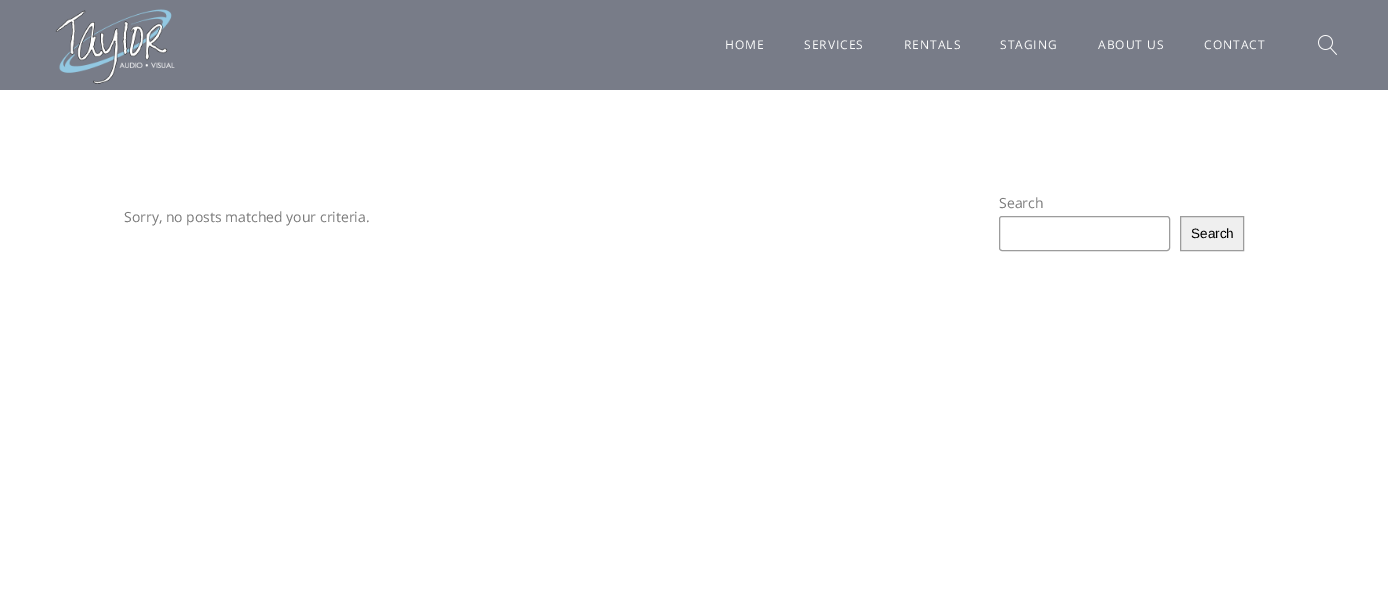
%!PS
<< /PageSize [1388 616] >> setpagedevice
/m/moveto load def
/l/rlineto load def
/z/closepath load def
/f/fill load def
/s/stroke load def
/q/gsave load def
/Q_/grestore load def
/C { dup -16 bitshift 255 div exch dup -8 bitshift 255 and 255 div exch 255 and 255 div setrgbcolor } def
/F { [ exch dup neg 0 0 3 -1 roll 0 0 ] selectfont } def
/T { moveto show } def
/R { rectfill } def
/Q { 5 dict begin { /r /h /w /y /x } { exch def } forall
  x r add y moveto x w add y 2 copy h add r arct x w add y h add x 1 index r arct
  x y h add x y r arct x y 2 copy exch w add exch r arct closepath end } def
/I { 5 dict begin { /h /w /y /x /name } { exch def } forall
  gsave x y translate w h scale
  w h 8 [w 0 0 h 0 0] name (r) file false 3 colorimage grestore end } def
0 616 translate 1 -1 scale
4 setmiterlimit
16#FFFFFF C
0 0 1388 616 R
16#787C88 C
0 0 1388 90 R
(1.rgb) 55 9 120 75 I
/OpenSans-Regular 12 F
16#FCFCFC C
725 49 m 1 0 (HOME) ashow
804 49 m 1 0 (SERVICES) ashow
904 49 m 1 0 (RENTALS) ashow
1000 49 m 1 0 (STAGING) ashow
1098 49 m 1 0 (ABOUT US) ashow
1204 49 m 1 0 (CONTACT) ashow
(2.rgb) 1318 35 19 20 I
/OpenSans-Regular 14 F
16#7B7B7B C
(Sorry, no posts matched your criteria.) 124 222 T
(Search) 999 208 T
16#9C9C9C C
999.5 216.5 170 34 2.5 Q s
16#EFEFEF C
1180.5 216.5 m 63 0 l 0 34 l -63 0 l z q f Q_
16#9C9C9C C
s
/LiberationSans-Regular 13.5 F
16#000000 C
(Search) 1191 238 T
showpage
